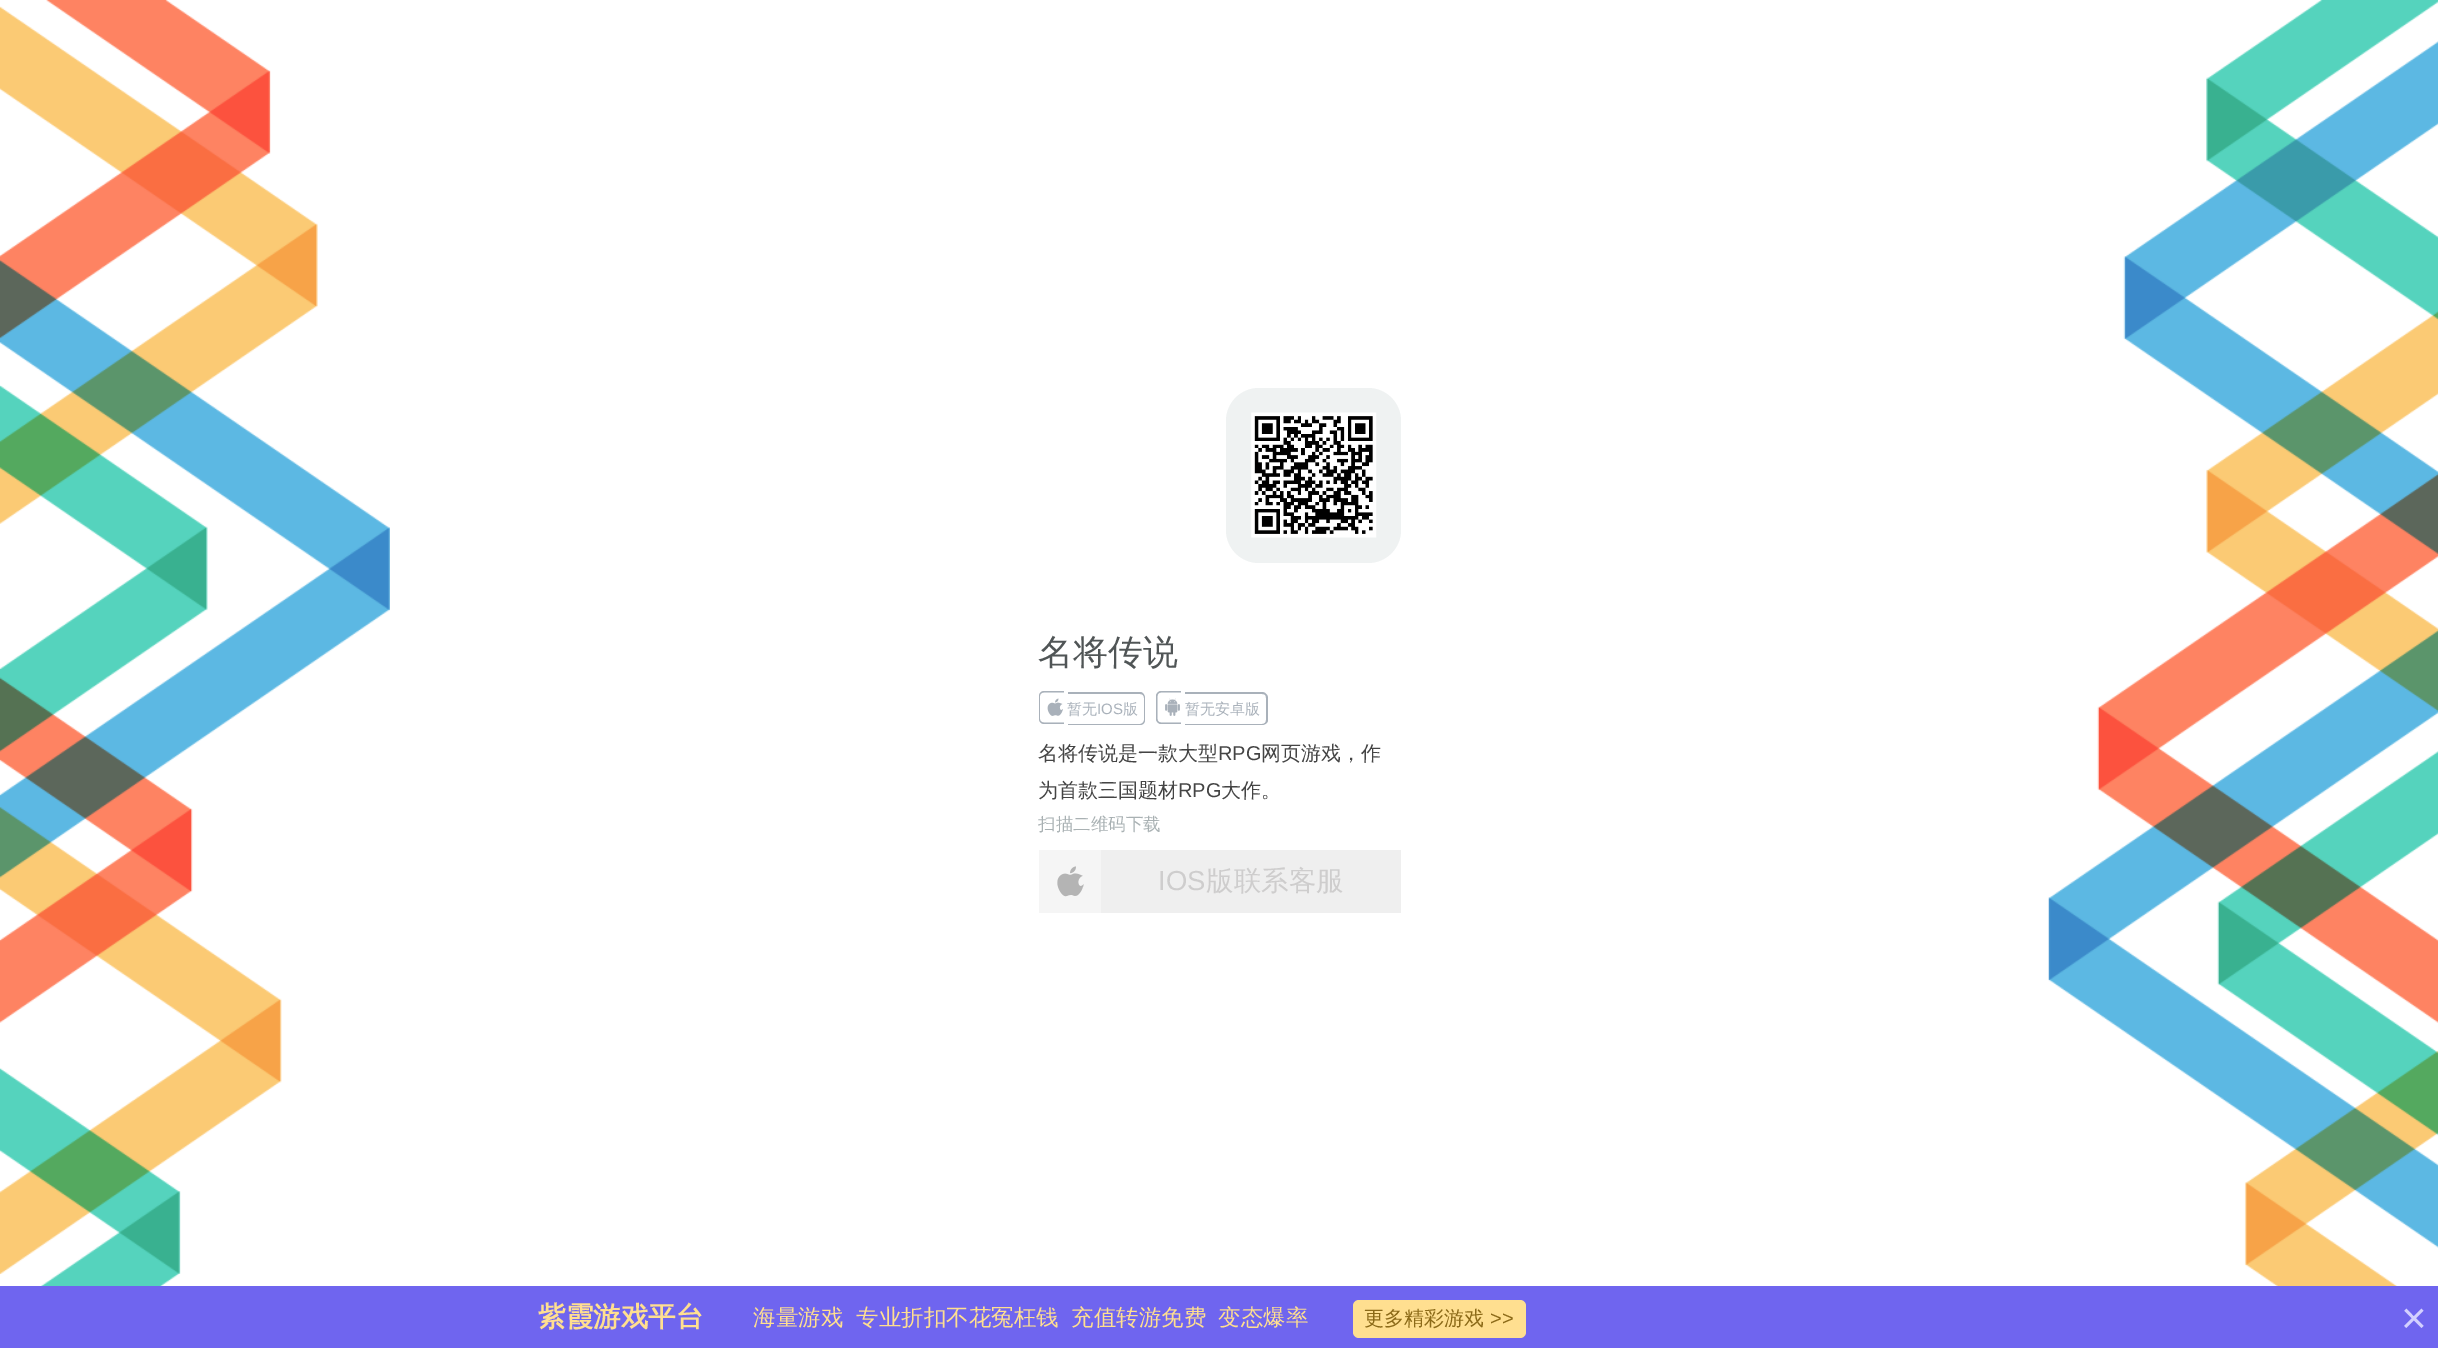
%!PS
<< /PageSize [2438 1348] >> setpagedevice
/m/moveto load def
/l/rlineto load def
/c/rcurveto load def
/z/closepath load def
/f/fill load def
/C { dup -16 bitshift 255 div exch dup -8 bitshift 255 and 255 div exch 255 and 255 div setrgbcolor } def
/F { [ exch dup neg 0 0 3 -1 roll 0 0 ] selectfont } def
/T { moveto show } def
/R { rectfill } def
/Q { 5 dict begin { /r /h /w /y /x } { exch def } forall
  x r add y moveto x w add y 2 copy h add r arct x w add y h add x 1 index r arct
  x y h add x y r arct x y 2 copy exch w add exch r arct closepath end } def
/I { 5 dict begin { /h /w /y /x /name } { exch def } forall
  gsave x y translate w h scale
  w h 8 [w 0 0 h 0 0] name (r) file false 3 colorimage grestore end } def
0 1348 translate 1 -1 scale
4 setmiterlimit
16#FFFFFF C
0 0 2438 1348 R
(1.rgb) 0 0 390 1286 I
16#EFF2F2 C
1226 388 175 175 33 Q f
(2.rgb) 1251 412 126 126 I
/WenQuanYiZenHei-Medium 35 F
16#505556 C
(名将传说) 1038 664 T
16#A9B1BA C
1044 691 m 20 0 l 0 33 l -20 0 l -3 0 -5 -2.5 -5 -5 c 0 -23 l 0 -2.5 2 -5 5 -5 c z 1044 692.5 m 20 0 l 0 30 l -20 0 l -2.5 0 -4 -1.5 -4 -3.5 c 0 -23 l 0 -2 1.5 -3.5 4 -3.5 c z eofill
(3.rgb) 1047 698 16 18 I
1068 692 m 72 0 l 3 0 5 3 5 6 c 0 22 l 0 3 -2 5 -5 5 c -72 0 l z 1068 694 m 72 0 l 2 0 4 1 4 4 c 0 22 l 0 2 -2 4 -4 4 c -72 0 l z eofill
/WenQuanYiZenHei-Medium 15 F
(暂无) 1067 714 T
/LiberationSans-Regular 15 F
(IOS) 1097 714 T
/WenQuanYiZenHei-Medium 15 F
(版) 1123 714 T
1161 691 m 20 0 l 0 33 l -20 0 l -2.5 0 -5 -2.5 -5 -5 c 0 -23 l 0 -2.5 2.5 -5 5 -5 c z 1161 692.5 m 20 0 l 0 30 l -20 0 l -2 0 -3.5 -1.5 -3.5 -3.5 c 0 -23 l 0 -2 1.5 -3.5 3.5 -3.5 c z eofill
(4.rgb) 1165 698 15 18 I
1185 692 m 77 0 l 3 0 6 3 6 6 c 0 22 l 0 3 -3 5 -6 5 c -77 0 l z 1185 694 m 77 0 l 3 0 4 1 4 4 c 0 22 l 0 2 -1 4 -4 4 c -77 0 l z eofill
(暂无安卓版) 1185 714 T
/WenQuanYiZenHei-Medium 20 F
16#444444 C
(名将传说是一款大型) 1038 760 T
/LiberationSans-Regular 20 F
(RPG) 1218 760 T
/WenQuanYiZenHei-Medium 20 F
(网页游戏，作) 1261 760 T
(为首款三国题材) 1038 797 T
/LiberationSans-Regular 20 F
(RPG) 1178 797 T
/WenQuanYiZenHei-Medium 20 F
(大作。) 1221 797 T
/WenQuanYiZenHei-Medium 17.5 F
16#A9B1B3 C
(扫描二维码下载) 1038 830 T
16#EFEFEF C
1101 850 300 63 R
16#F5F5F5 C
1039 850 62 63 R
(5.rgb) 1057 866 27 31 I
/LiberationSans-Regular 27.5 F
16#CECDCD C
(IOS) 1158 890 T
/WenQuanYiZenHei-Medium 27.5 F
(版联系客服) 1206 890 T
(6.rgb) 2048 0 390 1286 I
16#6F65EF C
0 1286 2438 62 R
/WenQuanYiZenHei-Bold 27.5 F
16#FFDF90 C
(紫霞游戏平台) 538 1326 T
/WenQuanYiZenHei-Medium 22.5 F
(海量游戏) 753 1325 T
(专业折扣不花冤枉钱) 856 1325 T
(充值转游免费) 1071 1325 T
(变态爆率) 1218 1325 T
1353 1300 173 38 6 Q f
/WenQuanYiZenHei-Medium 20 F
16#8C6A18 C
(更多精彩游戏) 1364 1325 T
/LiberationSans-Regular 20 F
(>>) 1490 1325 T
/LiberationSans-Regular 44 F
16#D3D0FF C
(×) 2401 1333 T
showpage
